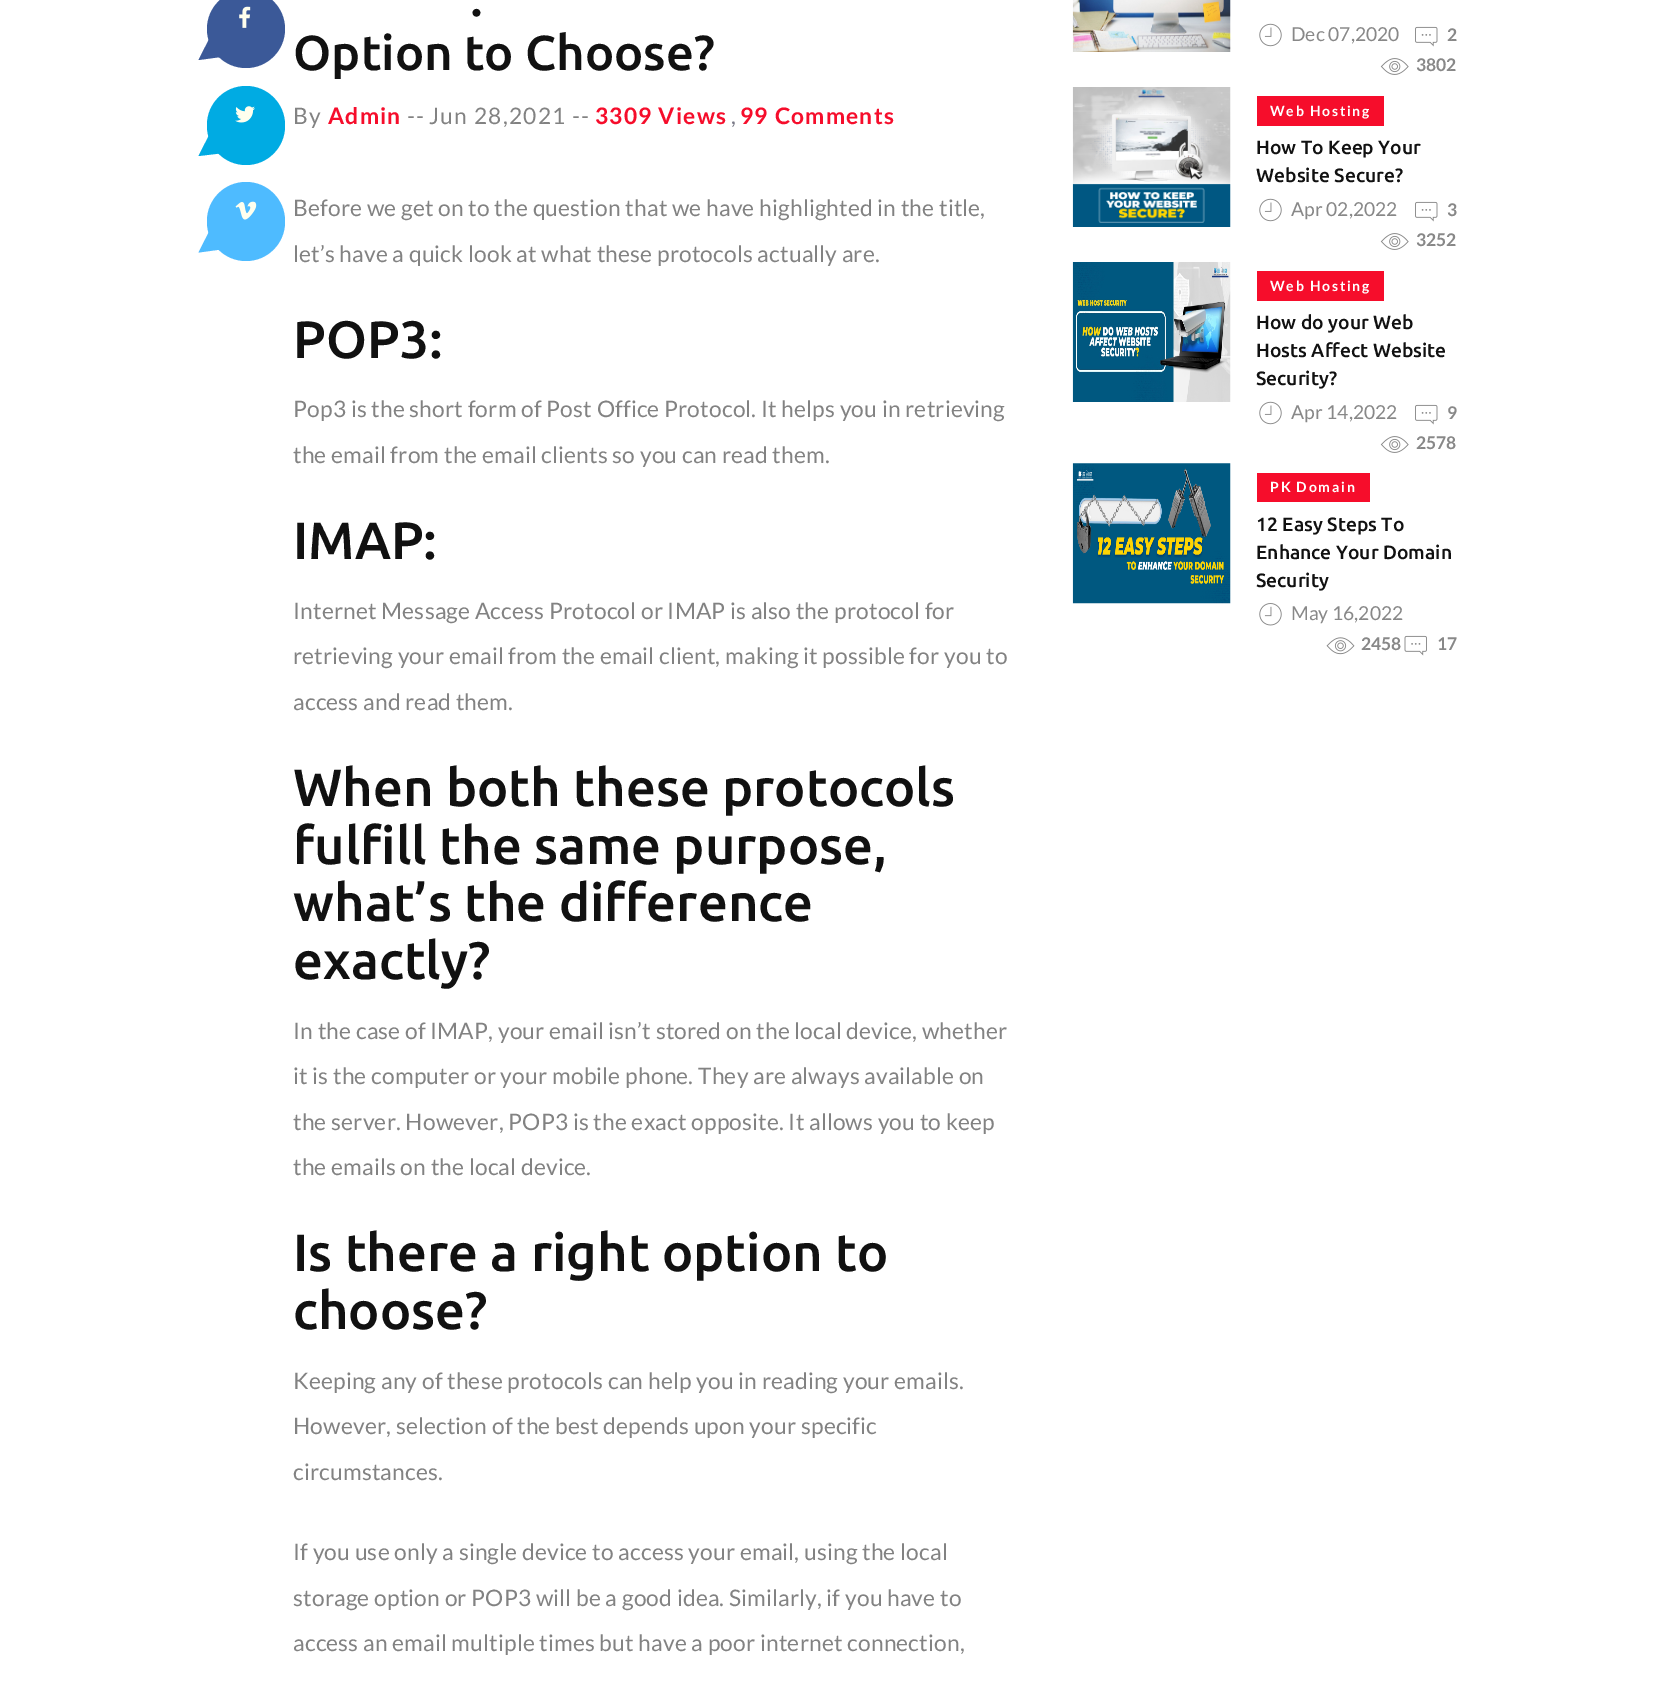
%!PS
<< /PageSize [1653 1687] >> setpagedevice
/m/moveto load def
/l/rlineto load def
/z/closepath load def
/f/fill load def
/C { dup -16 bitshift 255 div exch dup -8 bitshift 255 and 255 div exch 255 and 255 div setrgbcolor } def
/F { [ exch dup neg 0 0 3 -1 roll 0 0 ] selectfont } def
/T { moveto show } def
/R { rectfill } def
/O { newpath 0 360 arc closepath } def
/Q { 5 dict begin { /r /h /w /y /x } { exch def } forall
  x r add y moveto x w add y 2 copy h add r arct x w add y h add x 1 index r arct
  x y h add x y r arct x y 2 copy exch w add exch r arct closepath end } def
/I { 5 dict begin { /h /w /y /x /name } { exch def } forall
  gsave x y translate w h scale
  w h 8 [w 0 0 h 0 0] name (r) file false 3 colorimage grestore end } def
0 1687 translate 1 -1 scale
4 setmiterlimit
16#FFFFFF C
0 0 1653 1687 R
16#3B5998 C
246 29 39 O f
(1.rgb) 239 6 12 22 I
212 33.5 m 16 22.5 l -29.5 4 l z f
16#00ABE3 C
207 86 78 79 39 Q f
(2.rgb) 235 106 20 17 I
212 129.5 m 16 23 l -29.5 3.5 l z f
16#4EBBFF C
207 182 78 79 39 Q f
(3.rgb) 235 201 22 19 I
212 226 m 16 22.5 l -29.5 4 l z f
/Ubuntu-Medium 49 F
16#111111 C
(.) 470 16 T
(Option to Choose?) 293 70 T
/Lato-Regular 22.75 F
16#828282 C
293 124 m 1.25 0 (By) ashow
/Lato-Bold 22.75 F
16#F60D2B C
328 124 m 1.25 0 (Admin) ashow
/Lato-Regular 22.75 F
16#828282 C
407 124 m 1.25 0 (--) ashow
429 124 m 1.25 0 (Jun 28,2021 --) ashow
/Lato-Bold 22.75 F
16#F60D2B C
595 124 m 1.25 0 (3309 Views) ashow
/Lato-Regular 22.75 F
16#797986 C
(,) 731 124 T
/Lato-Bold 22.75 F
16#F60D2B C
740 124 m 1.25 0 (99 Comments) ashow
/Lato-Regular 22.75 F
16#828282 C
293 216 m .18 0 (Before we get on to the question that we have highlighted in the title,) ashow
293 262 m .18 0 (let’s have a quick look at what these protocols actually are.) ashow
/Ubuntu-Medium 52.5 F
16#111111 C
(POP3:) 293 358 T
/Lato-Regular 22.75 F
16#828282 C
293 417 m .18 0 (Pop3 is the short form of Post Office Protocol. It helps you in retrieving) ashow
293 463 m .18 0 (the email from the email clients so you can read them.) ashow
/Ubuntu-Medium 52.5 F
16#111111 C
(IMAP:) 293 559 T
/Lato-Regular 22.75 F
16#828282 C
293 619 m .18 0 (Internet Message Access Protocol or IMAP is also the protocol for) ashow
293 664 m .18 0 (retrieving your email from the email client, making it possible for you to) ashow
293 710 m .18 0 (access and read them.) ashow
/Ubuntu-Medium 52.5 F
16#111111 C
(When both these protocols) 293 806 T
(fulfill the same purpose,) 293 864 T
(what’s the difference) 293 921 T
(exactly?) 293 979 T
/Lato-Regular 22.75 F
16#828282 C
293 1039 m .18 0 (In the case of IMAP, your email isn’t stored on the local device, whether) ashow
293 1084 m .18 0 (it is the computer or your mobile phone. They are always available on) ashow
293 1130 m .18 0 (the server. However, POP3 is the exact opposite. It allows you to keep) ashow
293 1175 m .18 0 (the emails on the local device.) ashow
/Ubuntu-Medium 52.5 F
16#111111 C
(Is there a right option to) 293 1271 T
(choose?) 293 1329 T
/Lato-Regular 22.75 F
16#828282 C
293 1389 m .18 0 (Keeping any of these protocols can help you in reading your emails.) ashow
293 1434 m .18 0 (However, selection of the best depends upon your specific) ashow
293 1480 m .18 0 (circumstances.) ashow
293 1560 m .18 0 (If you use only a single device to access your email, using the local) ashow
293 1606 m .18 0 (storage option or POP3 will be a good idea. Similarly, if you have to) ashow
293 1651 m .18 0 (access an email multiple times but have a poor internet connection,) ashow
(4.rgb) 1072 0 159 52 I
(5.rgb) 1259 23 23 24 I
/Lato-Regular 19.25 F
16#888888 C
(Dec 07,2020) 1291 41 T
(6.rgb) 1415 26 23 21 I
/Lato-Bold 17.5 F
(2) 1447 41 T
(7.rgb) 1380 58 29 17 I
(3802) 1416 71 T
(8.rgb) 1072 87 159 140 I
16#F60D2B C
1257 96 127 30 R
/Lato-Bold 14 F
16#FFFFFF C
1270 116 m 1.75 0 (Web Hosting) ashow
/Ubuntu-Medium 19.25 F
16#111111 C
(How To Keep Your) 1256 154 T
(Website Secure?) 1256 182 T
(5.rgb) 1259 198 23 24 I
/Lato-Regular 19.25 F
16#888888 C
(Apr 02,2022) 1291 216 T
(6.rgb) 1415 201 23 21 I
/Lato-Bold 17.5 F
(3) 1447 216 T
(7.rgb) 1380 233 29 17 I
(3252) 1416 246 T
(9.rgb) 1072 262 159 140 I
16#F60D2B C
1257 271 127 30 R
/Lato-Bold 14 F
16#FFFFFF C
1270 291 m 1.75 0 (Web Hosting) ashow
/Ubuntu-Medium 19.25 F
16#111111 C
(How do your Web) 1256 329 T
(Hosts Affect Website) 1256 357 T
(Security?) 1256 385 T
(5.rgb) 1259 401 23 24 I
/Lato-Regular 19.25 F
16#888888 C
(Apr 14,2022) 1291 419 T
(6.rgb) 1415 404 23 21 I
/Lato-Bold 17.5 F
(9) 1447 419 T
(7.rgb) 1380 436 29 17 I
(2578) 1416 449 T
(10.rgb) 1072 463 159 141 I
16#F60D2B C
1257 473 113 29 R
/Lato-Bold 14 F
16#FFFFFF C
1270 492 m 1.75 0 (PK Domain) ashow
/Ubuntu-Medium 19.25 F
16#111111 C
(12 Easy Steps To) 1256 531 T
(Enhance Your Domain) 1256 559 T
(Security) 1256 587 T
(11.rgb) 1259 603 23 23 I
/Lato-Regular 19.25 F
16#888888 C
(May 16,2022) 1291 620 T
(12.rgb) 1326 637 29 18 I
/Lato-Bold 17.5 F
(2458) 1361 650 T
(13.rgb) 1404 635 23 21 I
(17) 1437 650 T
showpage
